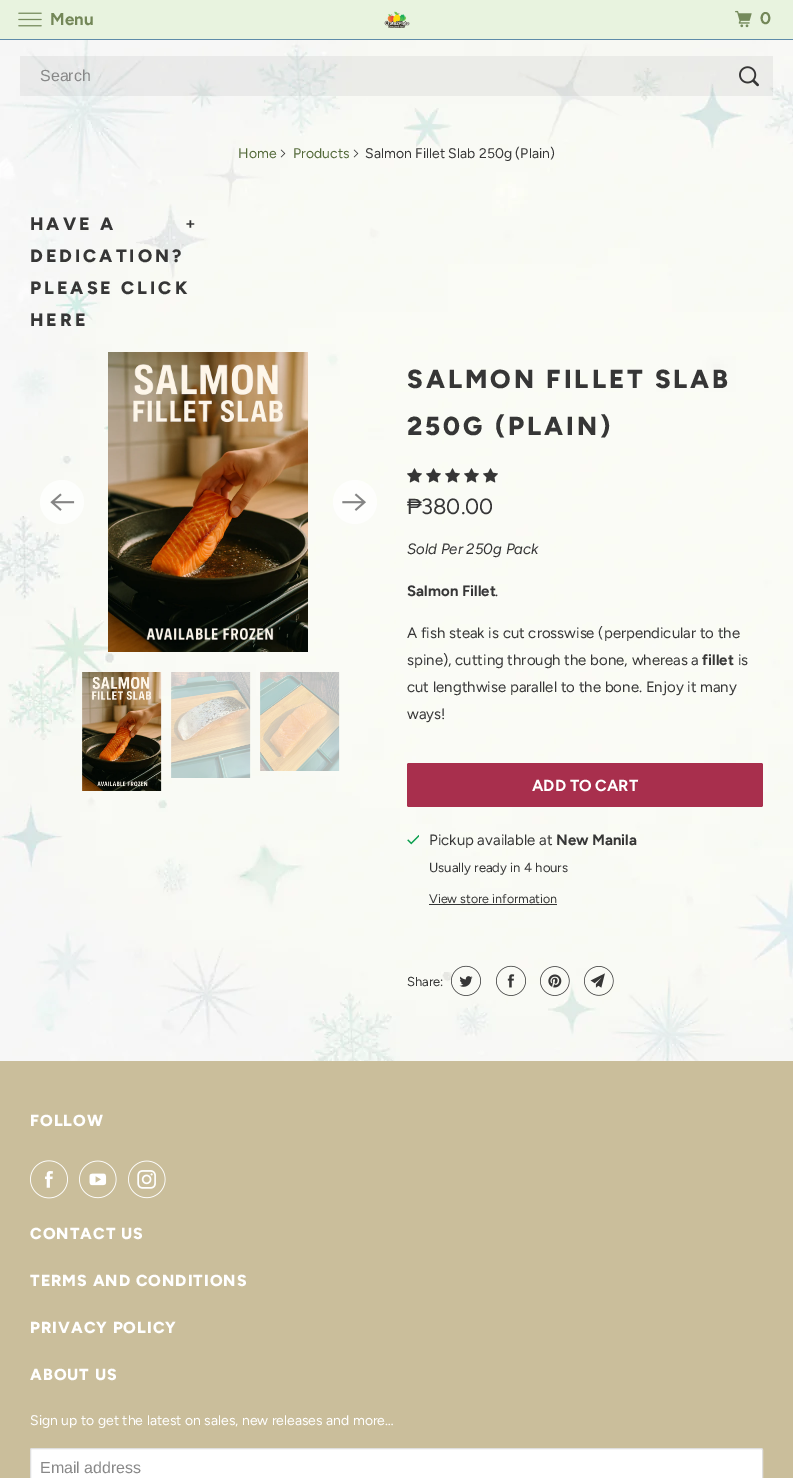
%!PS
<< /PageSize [793 1478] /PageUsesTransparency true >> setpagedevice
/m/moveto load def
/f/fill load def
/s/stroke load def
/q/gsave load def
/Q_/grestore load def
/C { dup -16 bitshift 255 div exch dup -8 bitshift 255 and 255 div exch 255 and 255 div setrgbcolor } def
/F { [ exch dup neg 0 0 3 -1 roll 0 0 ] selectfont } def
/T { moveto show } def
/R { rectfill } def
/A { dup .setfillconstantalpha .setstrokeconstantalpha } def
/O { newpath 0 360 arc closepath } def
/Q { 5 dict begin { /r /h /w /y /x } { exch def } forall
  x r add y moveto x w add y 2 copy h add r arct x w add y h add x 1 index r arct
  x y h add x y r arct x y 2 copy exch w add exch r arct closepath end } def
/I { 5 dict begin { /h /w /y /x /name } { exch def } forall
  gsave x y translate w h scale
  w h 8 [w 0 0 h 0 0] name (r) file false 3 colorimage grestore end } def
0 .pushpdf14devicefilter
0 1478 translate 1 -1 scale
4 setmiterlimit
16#FFFFFF C
0 0 793 1478 R
16#E8F3DF C
0 0 793 39 R
16#5E8BA9 C
0 39 793 1 R
(1.rgb) 18 12 24 15 I
/Figtree-Bold 17 F
16#738758 C
(Menu) 50 25 T
(2.rgb) 384 11 26 17 I
(3.rgb) 735 10 17 18 I
(0) 760 24 T
(4.rgb) 0 40 793 1021 I
0.05 A
16#000000 C
20 56 753 40 R
/LiberationSans-Regular 16 F
1 A
16#888888 C
(Search) 40 81 T
(5.rgb) 739 66 20 21 I
/Figtree-Regular 14 F
16#546A3A C
(Home) 238 158 T
(6.rgb) 280 149 6 9 I
(Products) 293 158 T
(7.rgb) 353 149 6 9 I
16#363636 C
(Salmon Fillet Slab 250g \(Plain\)) 365 158 T
/Figtree-ExtraBold 18 F
30 230 m 3 0 (HAVE A) ashow
/LiberationSans-Bold 15 F
186 229 m 3 0 (+) ashow
/Figtree-ExtraBold 18 F
30 262 m 3 0 (DEDICATION?) ashow
30 294 m 3 0 (PLEASE CLICK) ashow
30 326 m 3 0 (HERE) ashow
16#FDFEFC C
62 502 22 O f
(8.rgb) 50 493 25 18 I
(9.rgb) 108 352 200 300 I
0.75 A
16#FFFFFF C
355 502 22 O f
1 A
(10.rgb) 342 493 24 18 I
(11.rgb) 82 672 80 119 I
(12.rgb) 171 672 80 106 I
(13.rgb) 260 672 80 99 I
/Figtree-ExtraBold 26 F
16#363636 C
407 388 m 3 0 (SALMON FILLET SLAB) ashow
407 435 m 3 0 (250G \(PLAIN\)) ashow
(14.rgb) 407 468 15 15 I
(15.rgb) 426 468 15 15 I
(16.rgb) 445 468 15 15 I
(17.rgb) 464 468 15 15 I
(18.rgb) 483 468 15 15 I
/LiberationSans-Regular 22 F
(₱) 407 514 T
/Figtree-Regular 22 F
(380.00) 421 514 T
/Figtree-Italic 15 F
(Sold Per 250g Pack) 407 554 T
/Figtree-Bold 15 F
(Salmon Fillet) 407 596 T
/Figtree-Regular 15 F
(.) 495 596 T
(A fish steak is cut crosswise \(perpendicular to the) 407 638 T
(spine\), cutting through the bone, whereas a) 407 665 T
/Figtree-Bold 15 F
(fillet) 702 665 T
/Figtree-Regular 15 F
(is) 738 665 T
(cut lengthwise parallel to the bone. Enjoy it many) 407 692 T
(ways!) 407 719 T
16#A82F4D C
407 763 356 44 2 Q f
/Figtree-Bold 16 F
16#FFFFFF C
(ADD TO CART) 532 791 T
(19.rgb) 407 835 12 10 I
/Figtree-Regular 15 F
16#363636 C
(Pickup available at) 429 845 T
/Figtree-Bold 15 F
(New Manila) 556 845 T
/Figtree-Regular 13.1 F
(Usually ready in 4 hours) 429 872 T
/Figtree-Regular 12.5 F
(View store information) 429 903 T
429 904 128 1 R
/Figtree-Regular 13 F
(Share:) 407 986 T
(20.rgb) 451 965 30 31 I
(21.rgb) 496 965 30 31 I
(22.rgb) 540 966 30 30 I
(23.rgb) 584 966 30 30 I
16#CABE9B C
0 1061 793 417 R
/Figtree-ExtraBold 16 F
16#FFFFFF C
30 1126 m 1 0 (FOLLOW) ashow
(24.rgb) 30 1160 38 39 I
(25.rgb) 79 1160 38 39 I
(26.rgb) 128 1160 38 39 I
30 1239 m 1 0 (CONTACT US) ashow
30 1286 m 1 0 (TERMS AND CONDITIONS) ashow
30 1333 m 1 0 (PRIVACY POLICY) ashow
30 1380 m 1 0 (ABOUT US) ashow
/Figtree-Regular 14 F
(Sign up to get the latest on sales, new releases and more…) 30 1425 T
30.5 1448.5 732 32 1.5 Q q f Q_
16#DFDFDF C
s
/LiberationSans-Regular 16 F
16#888888 C
(Email address) 40 1473 T
.poppdf14devicefilter showpage
